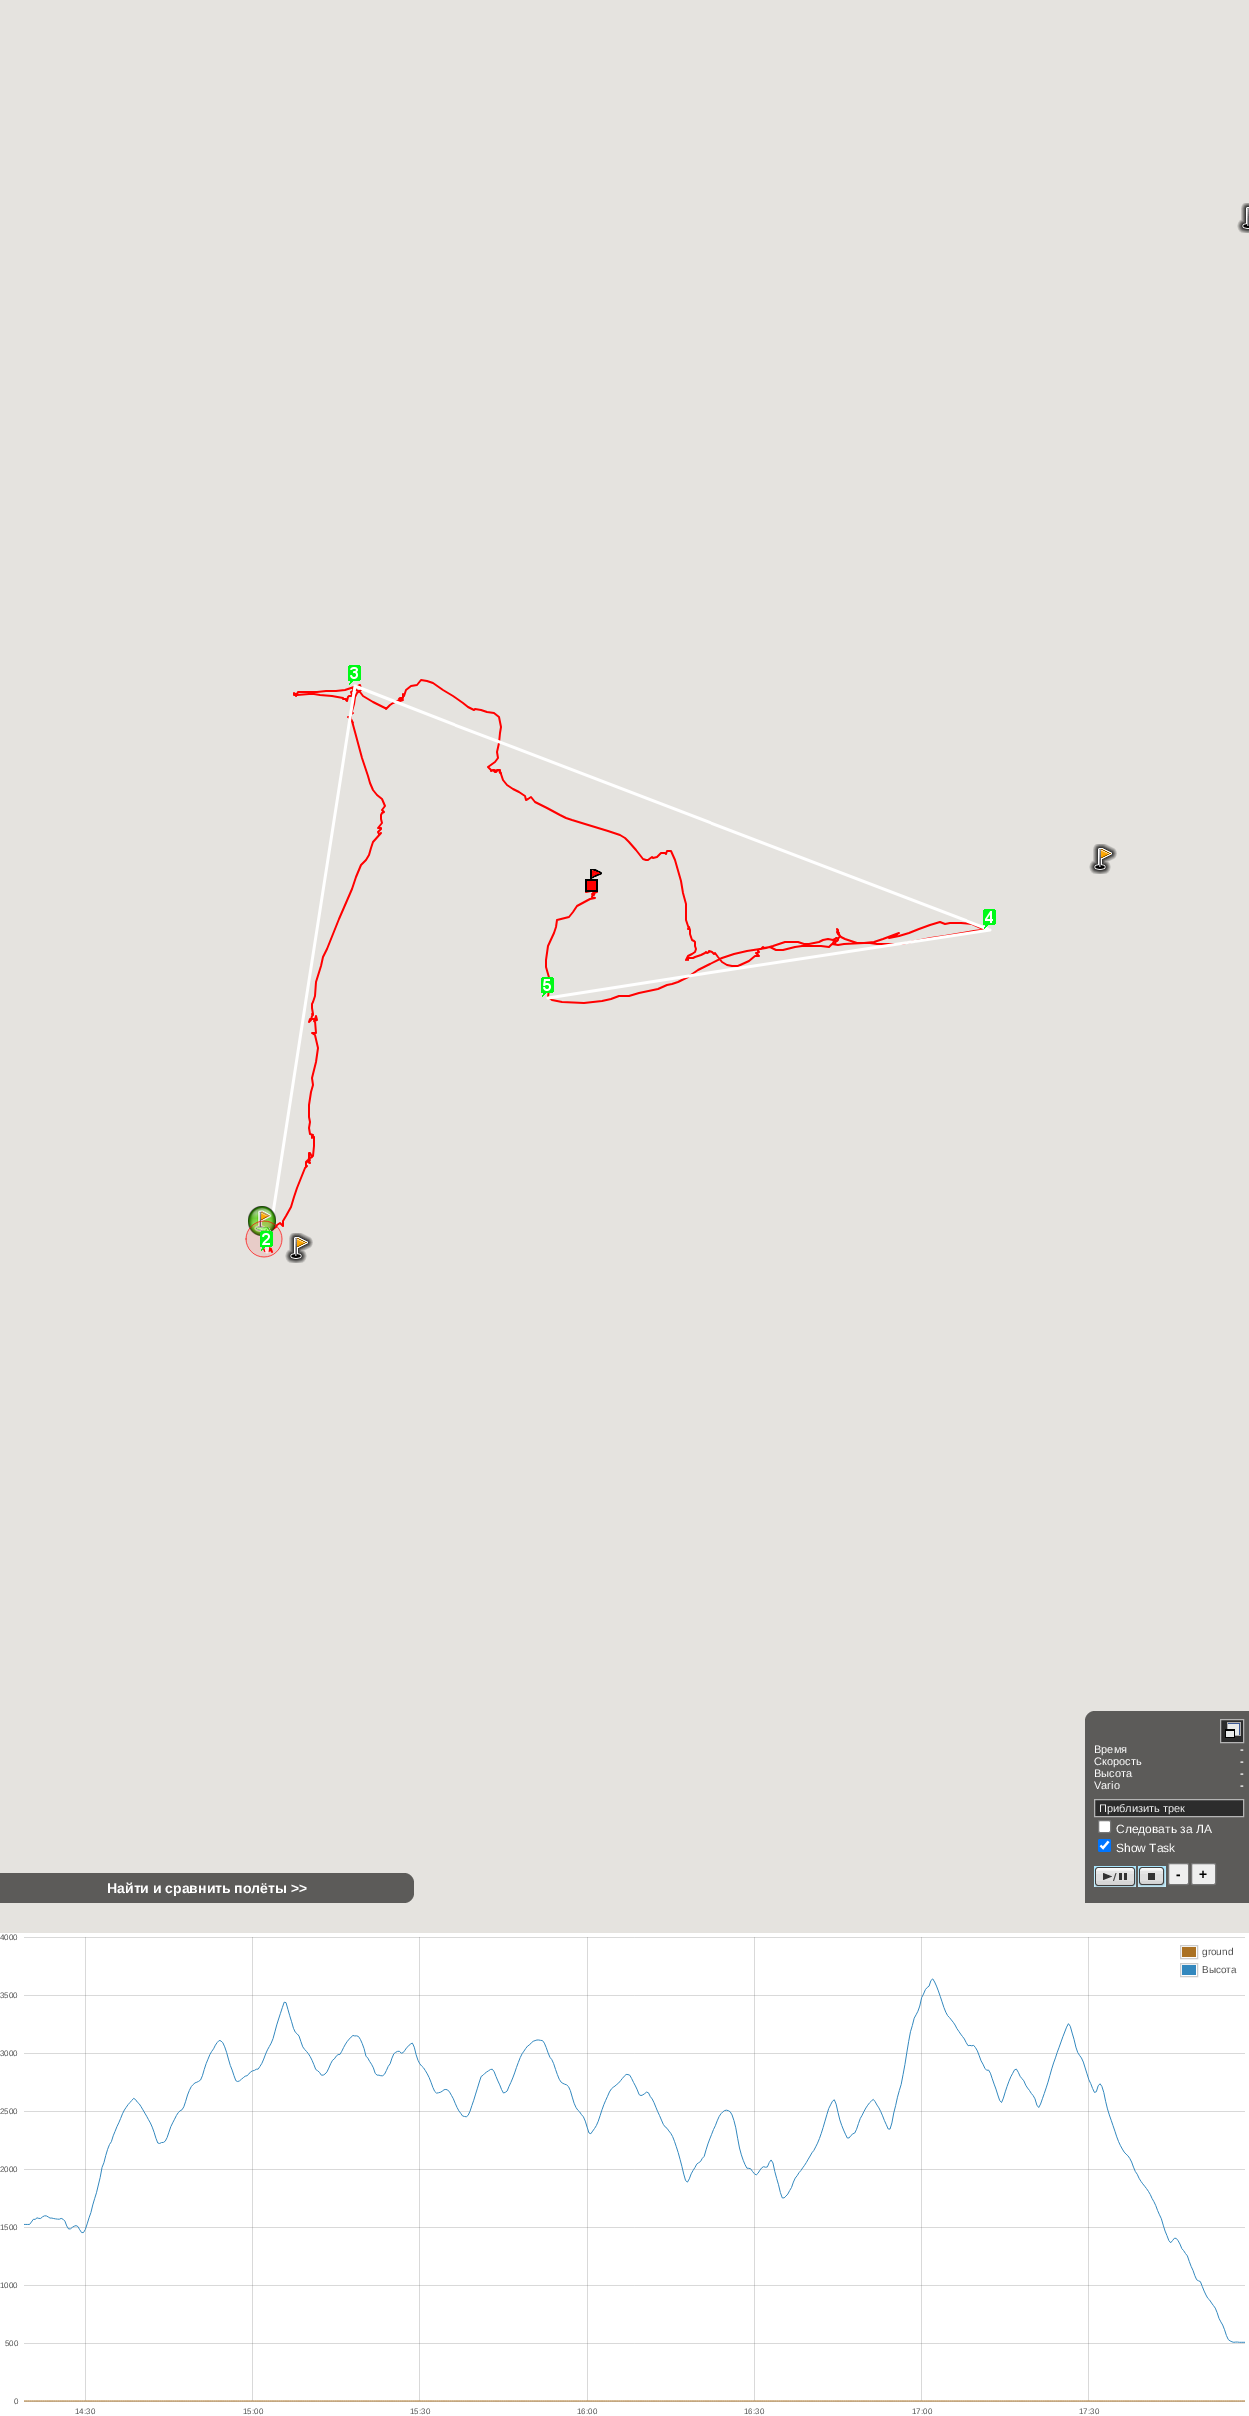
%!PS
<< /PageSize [1249 2416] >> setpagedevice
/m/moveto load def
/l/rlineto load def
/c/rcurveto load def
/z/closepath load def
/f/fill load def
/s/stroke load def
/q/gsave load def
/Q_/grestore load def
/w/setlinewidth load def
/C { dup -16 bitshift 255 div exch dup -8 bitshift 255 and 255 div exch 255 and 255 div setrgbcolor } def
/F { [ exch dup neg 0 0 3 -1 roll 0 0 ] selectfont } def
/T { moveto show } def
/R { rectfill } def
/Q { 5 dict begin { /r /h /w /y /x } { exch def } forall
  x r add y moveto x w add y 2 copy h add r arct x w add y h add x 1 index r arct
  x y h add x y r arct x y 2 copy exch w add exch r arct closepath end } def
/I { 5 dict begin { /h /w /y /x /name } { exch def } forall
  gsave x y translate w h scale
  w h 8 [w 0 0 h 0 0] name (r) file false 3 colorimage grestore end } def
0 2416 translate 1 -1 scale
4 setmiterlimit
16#FFFFFF C
0 0 1249 2416 R
16#E5E3DF C
0 0 1249 1933 R
(1.rgb) 1237 203 12 30 I
(11.rgb) 293 679 162 68 I
(2.rgb) 348 665 13 20 I
(3.rgb) 1089 844 28 30 I
(14.rgb) 487 747 224 256 I
(4.rgb) 585 869 17 23 I
(16.rgb) 967 919 25 16 I
(5.rgb) 983 909 13 20 I
(6.rgb) 541 977 13 20 I
(17.rgb) 263 1003 56 251 I
(7.rgb) 248 1206 28 30 I
(8.rgb) 245 1220 38 38 I
(9.rgb) 256 1227 15 4 I
(10.rgb) 260 1231 13 20 I
(3.rgb) 285 1233 28 30 I
(12.rgb) 455 696 62 51 I
(13.rgb) 304 747 82 256 I
(15.rgb) 711 821 256 153 I
(18.rgb) 562 1003 31 1 I
16#5C5B59 C
1095 1711 m 154 0 l 0 192 l -164 0 l 0 -182 l 0 -5.5 4.5 -10 10 -10 c z f
16#2C2C2C C
1220.5 1719.5 m 23 0 l 0 23 l -23 0 l z q f Q_
16#B4B4B4 C
s
(19.rgb) 1225 1722 16 16 I
/LiberationSans-Regular 11 F
16#FFFFFF C
(Время) 1094 1753 T
/LiberationSans-Bold 11 F
(-) 1240 1753 T
/LiberationSans-Regular 11 F
(Скорость) 1094 1765 T
/LiberationSans-Bold 11 F
(-) 1240 1765 T
/LiberationSans-Regular 11 F
(Высота) 1094 1777 T
/LiberationSans-Bold 11 F
(-) 1240 1777 T
/LiberationSans-Regular 11 F
(Vario) 1094 1789 T
/LiberationSans-Bold 11 F
(-) 1240 1789 T
16#2C2C2C C
1094.5 1799.5 m 149 0 l 0 17 l -149 0 l z q f Q_
16#B4B4B4 C
s
/LiberationSans-Regular 11 F
16#F0F0F0 C
(Приблизить трек) 1099 1812 T
16#FFFFFF C
1098.5 1820.5 12 12 1.5 Q q f Q_
16#767676 C
s
/LiberationSans-Regular 12 F
16#FFFFFF C
(Следовать за ЛА) 1116 1833 T
16#0075FF C
1098 1839 13 13 2 Q f
16#FFFFFF C
2.1 w
1100.5 1845.5 m 2.5 2.5 l 5.5 -6.5 l s
(Show Task) 1116 1852 T
(20.rgb) 1094 1866 42 21 I
(21.rgb) 1138 1866 28 21 I
16#EFEFEF C
1168.5 1863.5 20 21 1.5 Q q f Q_
16#767676 C
1 w
s
/LiberationSans-Bold 14 F
16#000000 C
(-) 1176 1879 T
16#EFEFEF C
1191.5 1863.5 24 21 1.5 Q q f Q_
16#767676 C
s
16#000000 C
(+) 1199 1879 T
16#5C5B59 C
0 1873 m 404 0 l 5.5 0 10 4.5 10 10 c 0 10 l 0 5.5 -4.5 10 -10 10 c -404 0 l z f
16#FFFFFF C
(Найти и сравнить полёты >>) 107 1893 T
/LiberationSans-Regular 8 F
16#545454 C
(4000) 0 1940 T
(3500) 0 1998 T
(3000) 0 2056 T
(2500) 0 2114 T
(2000) 0 2172 T
(1500) 0 2230 T
(1000) 0 2288 T
(500) 5 2346 T
(0) 14 2404 T
(14:30) 75 2414 T
(15:00) 243 2414 T
(15:30) 410 2414 T
(16:00) 577 2414 T
(16:30) 744 2414 T
(17:00) 912 2414 T
(17:30) 1079 2414 T
(22.rgb) 24 1937 1221 465 I
16#CCCCCC C
1180.5 1945.5 17 13 rectstroke
16#AB7224 C
1182 1947 14 10 R
/LiberationSans-Regular 10 F
16#545454 C
(ground) 1202 1955 T
16#CCCCCC C
1180.5 1963.5 17 13 rectstroke
16#3388BE C
1182 1965 14 10 R
16#545454 C
(Высота) 1202 1973 T
showpage
